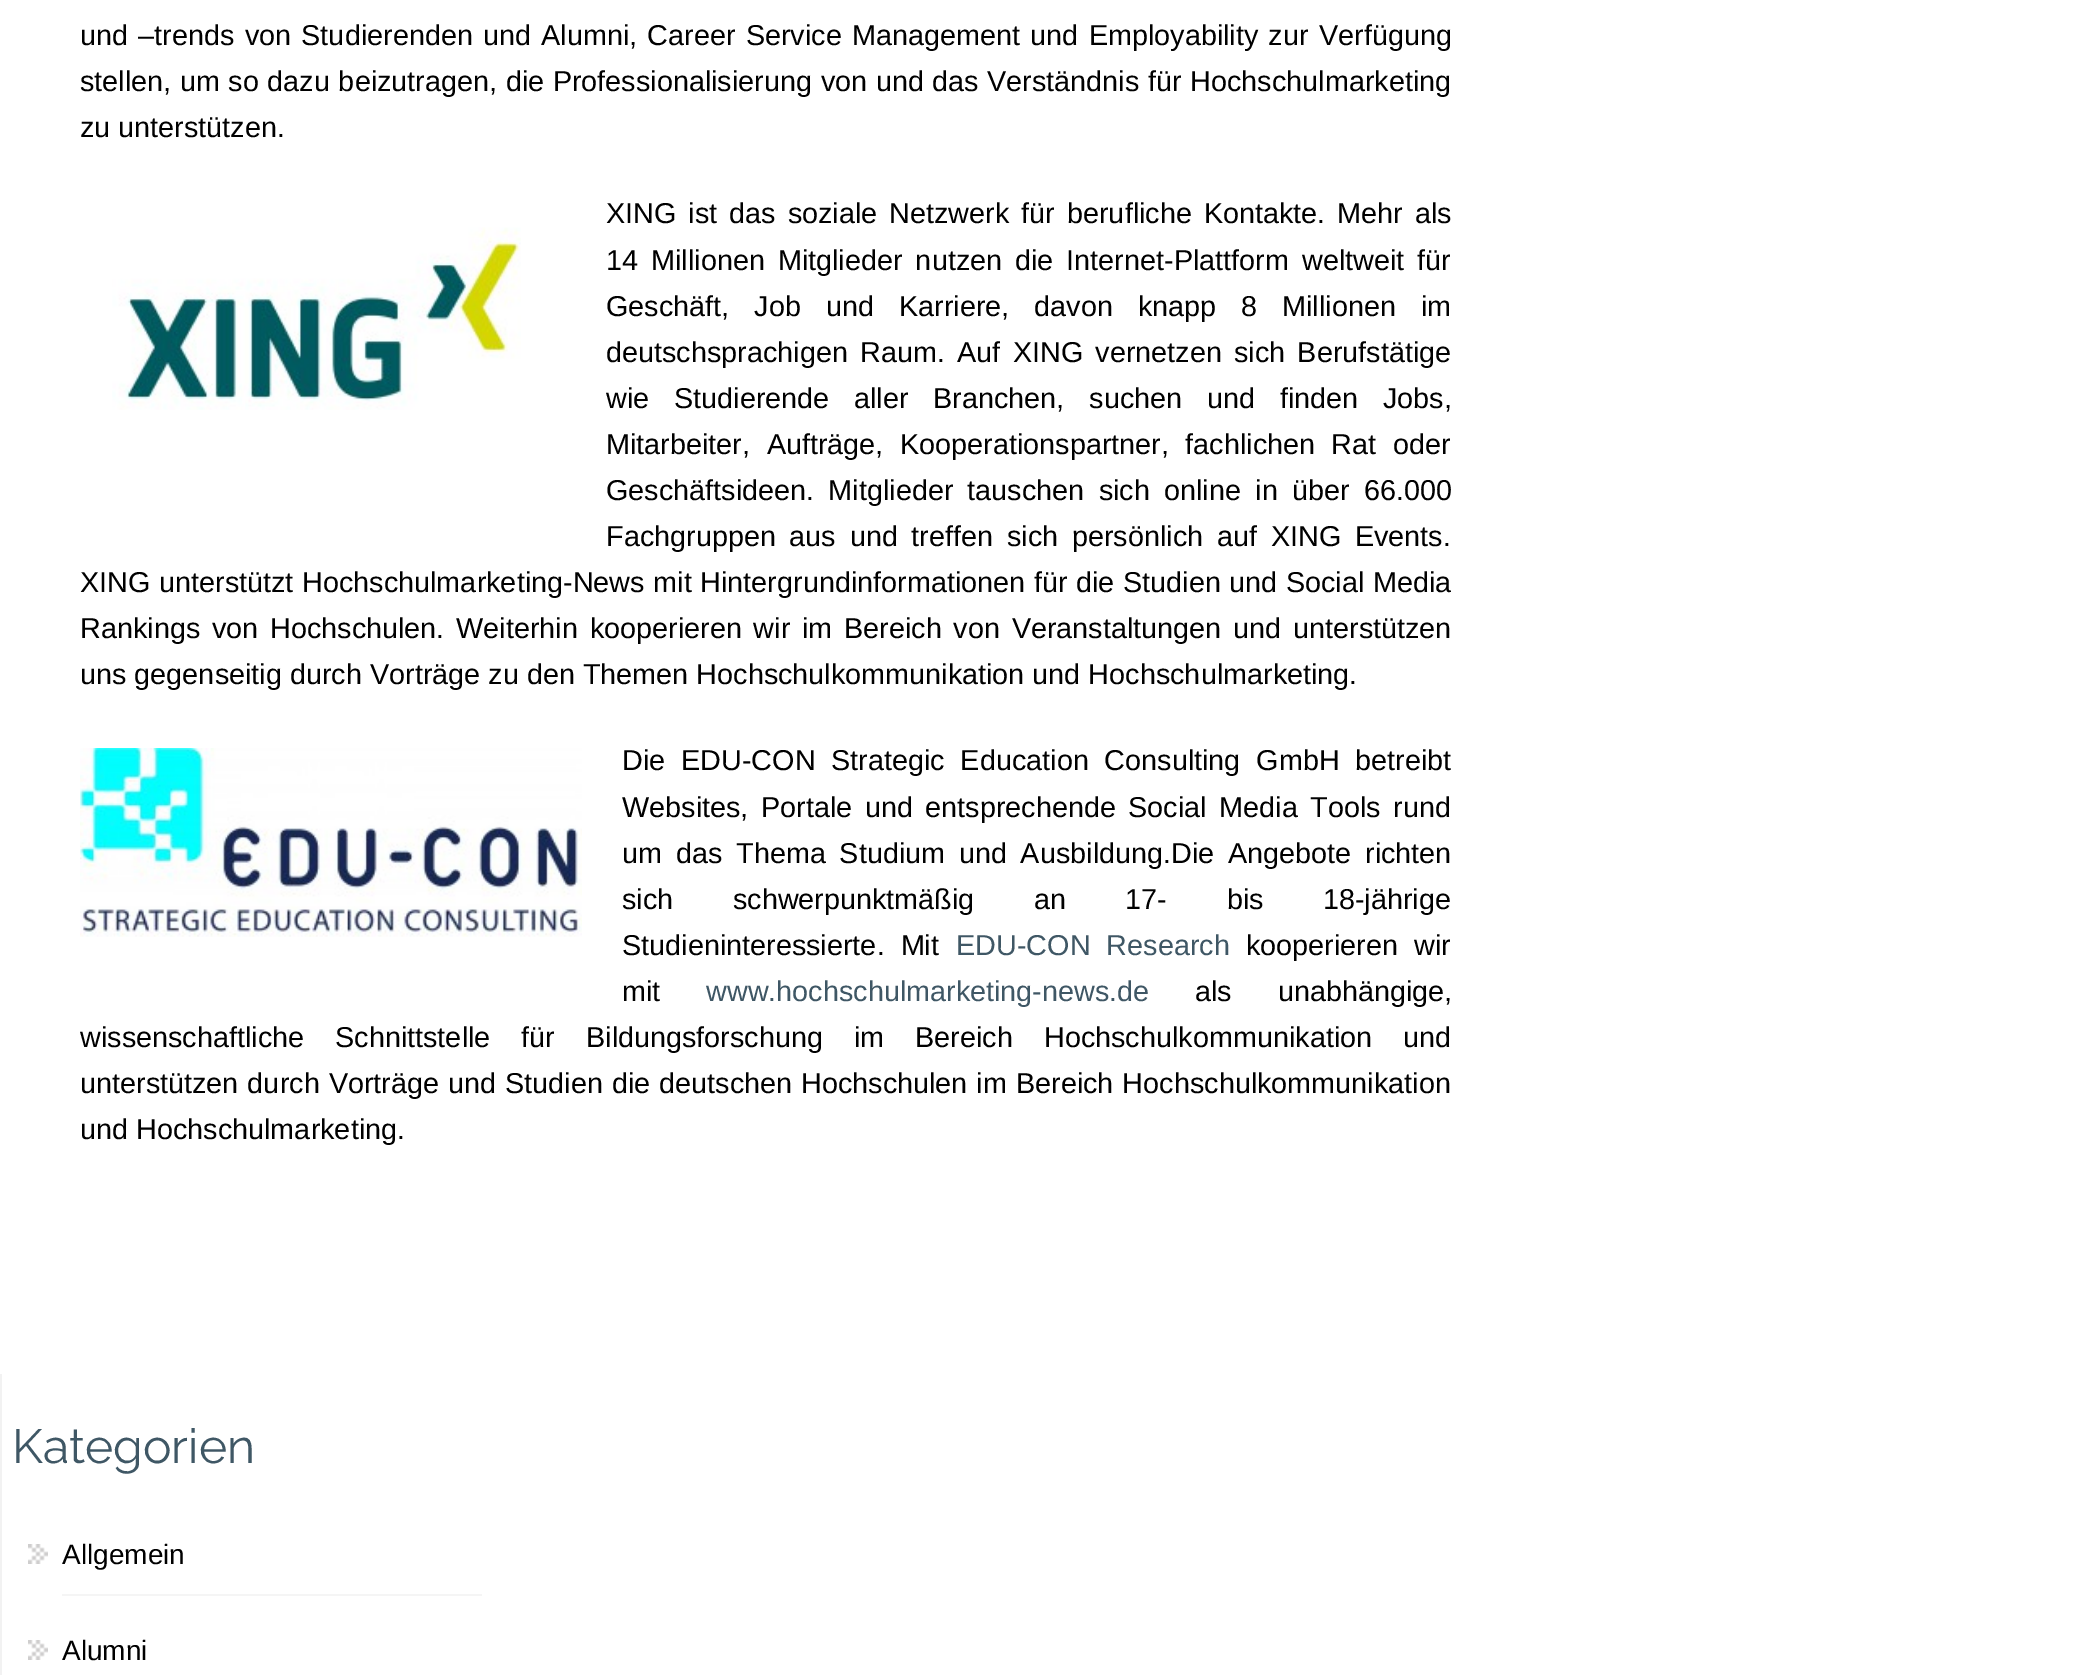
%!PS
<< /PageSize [2097 1675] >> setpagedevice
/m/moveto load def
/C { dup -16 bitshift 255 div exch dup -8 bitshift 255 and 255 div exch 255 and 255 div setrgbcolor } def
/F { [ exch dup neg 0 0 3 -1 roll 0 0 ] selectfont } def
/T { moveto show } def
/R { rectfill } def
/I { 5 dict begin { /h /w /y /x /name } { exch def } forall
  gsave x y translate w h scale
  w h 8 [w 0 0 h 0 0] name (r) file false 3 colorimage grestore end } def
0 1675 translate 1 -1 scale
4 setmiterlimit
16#FFFFFF C
0 0 2097 1675 R
/LiberationSans-Regular 28.8 F
16#000000 C
80 45 m 2.25 0 32 (und –trends von Studierenden und Alumni, Career Service Management und Employability zur Verfügung) widthshow
80 91 m .6 0 32 (stellen, um so dazu beizutragen, die Professionalisierung von und das Verständnis für Hochschulmarketing) widthshow
(zu unterstützen.) 80 137 T
606 223 m 4 0 32 (XING ist das soziale Netzwerk für berufliche Kontakte. Mehr als) widthshow
(1.rgb) 112 227 409 183 I
606 270 m 5 0 32 (14 Millionen Mitglieder nutzen die Internet-Plattform weltweit für) widthshow
606 316 m 17 0 32 (Geschäft, Job und Karriere, davon knapp 8 Millionen im) widthshow
606 362 m 4.25 0 32 (deutschsprachigen Raum. Auf XING vernetzen sich Berufstätige) widthshow
606 408 m 16.75 0 32 (wie Studierende aller Branchen, suchen und finden Jobs,) widthshow
606 454 m 8.5 0 32 (Mitarbeiter, Aufträge, Kooperationspartner, fachlichen Rat oder) widthshow
606 500 m 6.25 0 32 (Geschäftsideen. Mitglieder tauschen sich online in über 66.000) widthshow
606 546 m 5.75 0 32 (Fachgruppen aus und treffen sich persönlich auf XING Events.) widthshow
80 592 m .6 0 32 (XING unterstützt Hochschulmarketing-News mit Hintergrundinformationen für die Studien und Social Media) widthshow
80 638 m 3.75 0 32 (Rankings von Hochschulen. Weiterhin kooperieren wir im Bereich von Veranstaltungen und unterstützen) widthshow
(uns gegenseitig durch Vorträge zu den Themen Hochschulkommunikation und Hochschulmarketing.) 80 684 T
(2.rgb) 80 748 502 189 I
622 770 m 7.75 0 32 (Die EDU-CON Strategic Education Consulting GmbH betreibt) widthshow
622 817 m 4.5 0 32 (Websites, Portale und entsprechende Social Media Tools rund) widthshow
622 863 m 5.75 0 32 (um das Thema Studium und Ausbildung.Die Angebote richten) widthshow
622 909 m 51.5 0 32 (sich schwerpunktmäßig an 17- bis 18-jährige) widthshow
622 955 m 8 0 32 (Studieninteressierte. Mit) widthshow
16#3F5765 C
956 955 m 8 0 32 (EDU-CON Research) widthshow
16#000000 C
1246 955 m 8 0 32 (kooperieren wir) widthshow
(mit) 622 1001 T
16#3F5765 C
(www.hochschulmarketing-news.de) 706 1001 T
16#000000 C
1195 1001 m 38 0 32 (als unabhängige,) widthshow
80 1047 m 23 0 32 (wissenschaftliche Schnittstelle für Bildungsforschung im Bereich Hochschulkommunikation und) widthshow
80 1093 m 1 0 32 (unterstützen durch Vorträge und Studien die deutschen Hochschulen im Bereich Hochschulkommunikation) widthshow
(und Hochschulmarketing.) 80 1139 T
16#F2F2F2 C
0 1374 2 301 R
/Raleway-Regular 48 F
16#3F5765 C
(Kategorien) 12 1463 T
16#F5F5F5 C
62 1594 420 2 R
(3.rgb) 28 1544 20 20 I
/LiberationSans-Regular 28 F
16#000000 C
(Allgemein) 62 1564 T
(3.rgb) 28 1640 20 20 I
(Alumni) 62 1660 T
showpage
